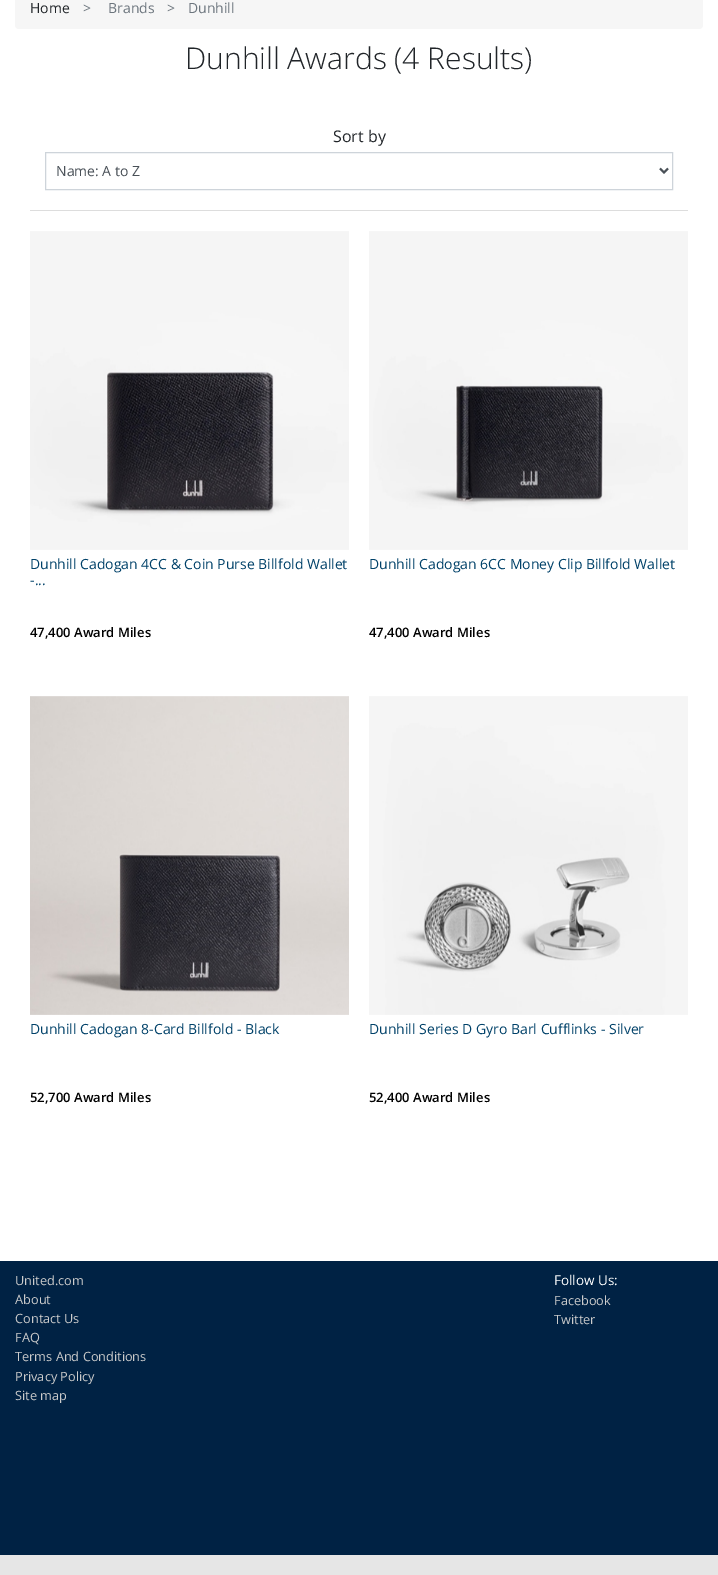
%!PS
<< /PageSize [718 1575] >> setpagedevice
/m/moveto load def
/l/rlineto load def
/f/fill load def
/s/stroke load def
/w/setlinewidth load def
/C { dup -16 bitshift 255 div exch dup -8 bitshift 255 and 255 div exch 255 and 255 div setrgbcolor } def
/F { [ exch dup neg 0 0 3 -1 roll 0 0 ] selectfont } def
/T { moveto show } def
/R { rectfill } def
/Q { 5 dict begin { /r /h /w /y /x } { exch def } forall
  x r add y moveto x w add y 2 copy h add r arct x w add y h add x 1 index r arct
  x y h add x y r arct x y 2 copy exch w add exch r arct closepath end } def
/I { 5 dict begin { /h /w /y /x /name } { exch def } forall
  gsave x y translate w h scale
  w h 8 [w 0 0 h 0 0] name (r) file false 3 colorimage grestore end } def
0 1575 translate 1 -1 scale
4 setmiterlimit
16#FFFFFF C
0 0 718 1575 R
16#F6F6F6 C
15 -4 688 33 4 Q f
/OpenSans-Regular 14 F
16#212529 C
(Home) 30 13 T
16#6C757D C
(>) 83 13 T
(Brands) 108 13 T
(>) 167 13 T
(Dunhill) 188 13 T
/OpenSans-Light 30 F
16#212529 C
(Dunhill Awards \(4 Results\)) 185 69 T
16#DDDDDD C
30 210 658 1 R
/OpenSans-Regular 16 F
16#212529 C
(Sort by) 333 142 T
16#CED4DA C
45.5 152.5 627 37 rectstroke
16#495057 C
2 w
660 168.5 m 4 4 l 4 -4 l s
/OpenSans-Regular 14 F
(Name: A to Z) 56 176 T
(1.rgb) 30 231 319 319 I
16#004169 C
(Dunhill Cadogan 4CC & Coin Purse Billfold Wallet) 30 569 T
(-...) 30 585 T
/OpenSans-SemiBold 13 F
16#000000 C
(47,400 Award Miles) 30 637 T
(2.rgb) 369 231 319 319 I
/OpenSans-Regular 14 F
16#004169 C
(Dunhill Cadogan 6CC Money Clip Billfold Wallet) 369 569 T
/OpenSans-SemiBold 13 F
16#000000 C
(47,400 Award Miles) 369 637 T
(3.rgb) 30 696 319 319 I
/OpenSans-Regular 14 F
16#004169 C
(Dunhill Cadogan 8-Card Billfold - Black) 30 1034 T
/OpenSans-SemiBold 13 F
16#000000 C
(52,700 Award Miles) 30 1102 T
(4.rgb) 369 696 319 319 I
/OpenSans-Regular 14 F
16#004169 C
(Dunhill Series D Gyro Barl Cufflinks - Silver) 369 1034 T
/OpenSans-SemiBold 13 F
16#000000 C
(52,400 Award Miles) 369 1102 T
16#E6E6E6 C
0 1555 718 20 R
16#002244 C
0 1261 718 294 R
/OpenSans-Regular 12.75 F
16#CCCCCC C
(United.com) 15 1285 T
(About) 15 1304 T
(Contact Us) 15 1323 T
(FAQ) 15 1342 T
(Terms And Conditions) 15 1361 T
(Privacy Policy) 15 1381 T
(Site map) 15 1400 T
/OpenSans-Regular 13.5 F
16#FFFFFF C
(Follow Us:) 554 1285 T
/OpenSans-Regular 12.75 F
16#CCCCCC C
(Facebook) 554 1305 T
(Twitter) 554 1324 T
showpage
